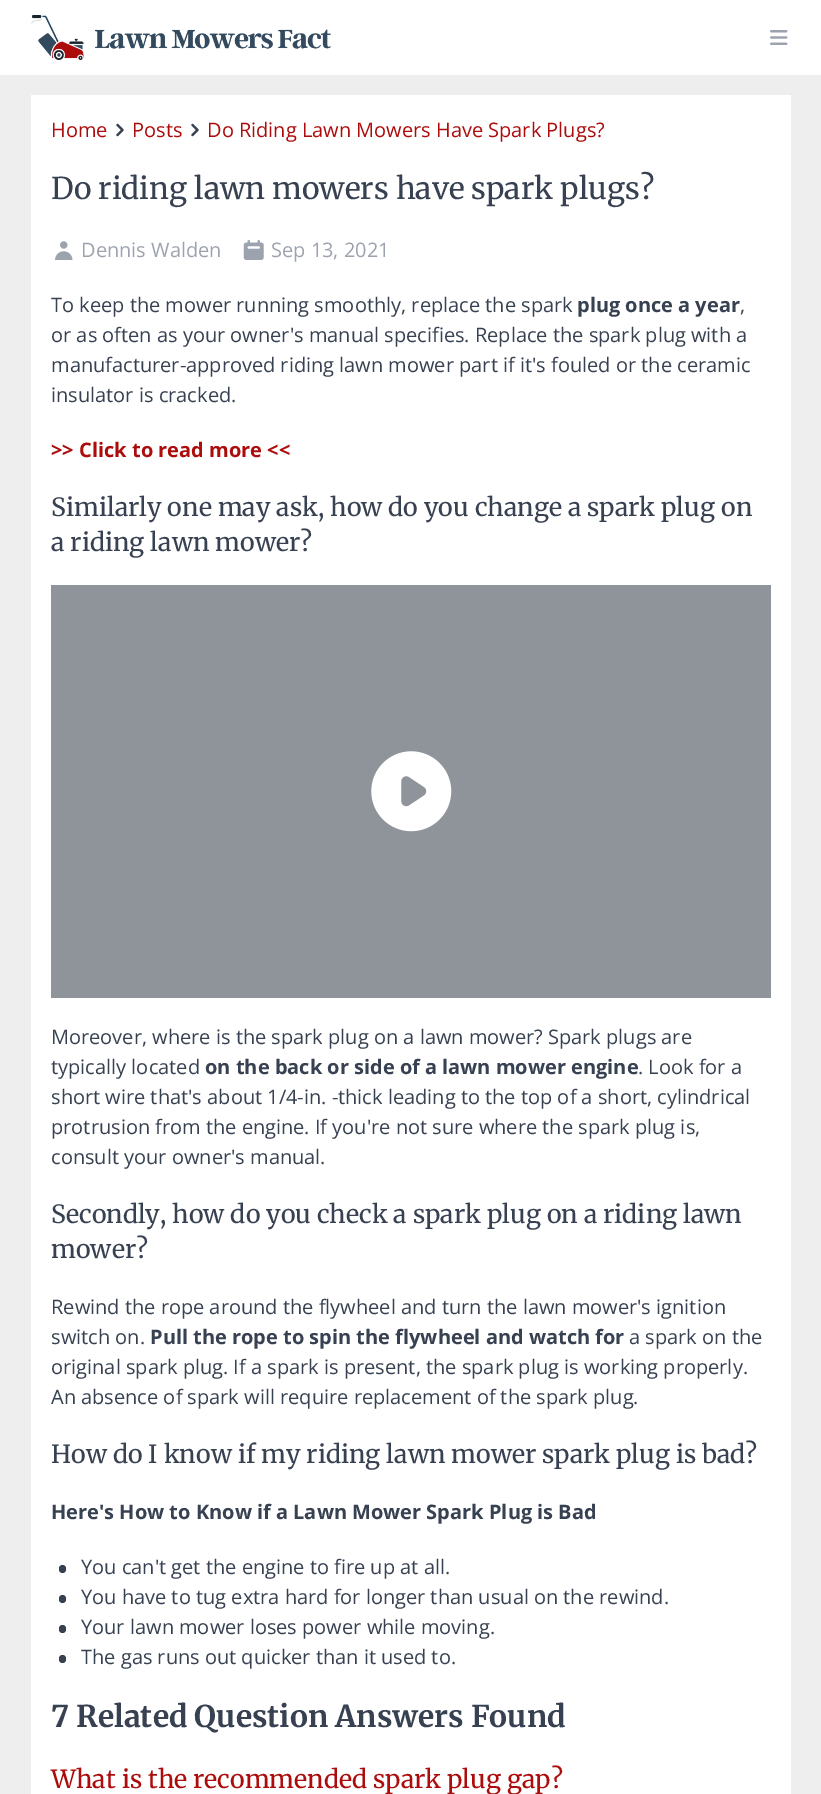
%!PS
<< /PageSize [821 1794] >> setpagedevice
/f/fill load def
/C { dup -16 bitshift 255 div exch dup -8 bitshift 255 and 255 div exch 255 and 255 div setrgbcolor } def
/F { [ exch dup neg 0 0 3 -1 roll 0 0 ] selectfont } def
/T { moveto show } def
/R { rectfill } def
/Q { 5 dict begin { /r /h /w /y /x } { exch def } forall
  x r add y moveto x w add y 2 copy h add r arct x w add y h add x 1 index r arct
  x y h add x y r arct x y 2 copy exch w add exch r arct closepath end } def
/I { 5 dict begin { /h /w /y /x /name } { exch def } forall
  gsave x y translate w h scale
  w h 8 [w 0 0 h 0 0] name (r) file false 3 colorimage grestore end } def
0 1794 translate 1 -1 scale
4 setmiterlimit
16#EEEEEE C
0 0 821 1794 R
16#FFFFFF C
0 0 821 75 R
(1.rgb) 31 15 300 45 I
(2.rgb) 770 30 18 15 I
31 95 760 1699 R
/OpenSans-Regular 20 F
16#AC0C0C C
(Home) 51 137 T
(3.rgb) 116 123 8 14 I
(Posts) 132 137 T
(3.rgb) 191 123 8 14 I
(Do Riding Lawn Mowers Have Spark Plugs?) 207 137 T
/Merriweather-Regular 30 F
16#374151 C
(Do riding lawn mowers have spark plugs?) 51 199 T
(4.rgb) 55 241 18 19 I
/OpenSans-Regular 20 F
16#9CA3AF C
(Dennis Walden) 81 257 T
(5.rgb) 243 240 21 20 I
(Sep 13, 2021) 271 257 T
16#374151 C
(To keep the mower running smoothly, replace the spark) 51 312 T
/OpenSans-Bold 20 F
(plug once a year) 577 312 T
/OpenSans-Regular 20 F
(,) 740 312 T
(or as often as your owner's manual specifies. Replace the spark plug with a) 51 342 T
(manufacturer-approved riding lawn mower part if it's fouled or the ceramic) 51 372 T
(insulator is cracked.) 51 402 T
/OpenSans-Bold 20 F
16#AC0C0C C
(>> Click to read more <<) 51 457 T
/Merriweather-Regular 25 F
16#374151 C
(Similarly one may ask, how do you change a spark plug on) 51 516 T
(a riding lawn mower?) 51 551 T
16#8F949B C
51 585 720 413 R
(6.rgb) 371 751 81 81 I
/OpenSans-Regular 20 F
16#374151 C
(Moreover, where is the spark plug on a lawn mower? Spark plugs are) 51 1044 T
(typically located) 51 1074 T
/OpenSans-Bold 20 F
(on the back or side of a lawn mower engine) 205 1074 T
/OpenSans-Regular 20 F
(. Look for a) 638 1074 T
(short wire that's about 1/4-in. -thick leading to the top of a short, cylindrical) 51 1104 T
(protrusion from the engine. If you're not sure where the spark plug is,) 51 1134 T
(consult your owner's manual.) 51 1164 T
/Merriweather-Regular 25 F
(Secondly, how do you check a spark plug on a riding lawn) 51 1223 T
(mower?) 51 1258 T
/OpenSans-Regular 20 F
(Rewind the rope around the flywheel and turn the lawn mower's ignition) 51 1314 T
(switch on.) 51 1344 T
/OpenSans-Bold 20 F
(Pull the rope to spin the flywheel and watch for) 150 1344 T
/OpenSans-Regular 20 F
(a spark on the) 629 1344 T
(original spark plug. If a spark is present, the spark plug is working properly.) 51 1374 T
(An absence of spark will require replacement of the spark plug.) 51 1404 T
/Merriweather-Regular 25 F
(How do I know if my riding lawn mower spark plug is bad?) 51 1463 T
/OpenSans-Bold 20 F
(Here's How to Know if a Lawn Mower Spark Plug is Bad) 51 1519 T
59 1565 7 8 3.5 Q f
/OpenSans-Regular 20 F
(You can't get the engine to fire up at all.) 81 1574 T
59 1595 7 8 3.5 Q f
(You have to tug extra hard for longer than usual on the rewind.) 81 1604 T
59 1625 7 8 3.5 Q f
(Your lawn mower loses power while moving.) 81 1634 T
59 1655 7 8 3.5 Q f
(The gas runs out quicker than it used to.) 81 1664 T
/Merriweather-Bold 30 F
(7 Related Question Answers Found) 51 1727 T
/Merriweather-Regular 25 F
16#AC0C0C C
(What is the recommended spark plug gap?) 51 1788 T
showpage
